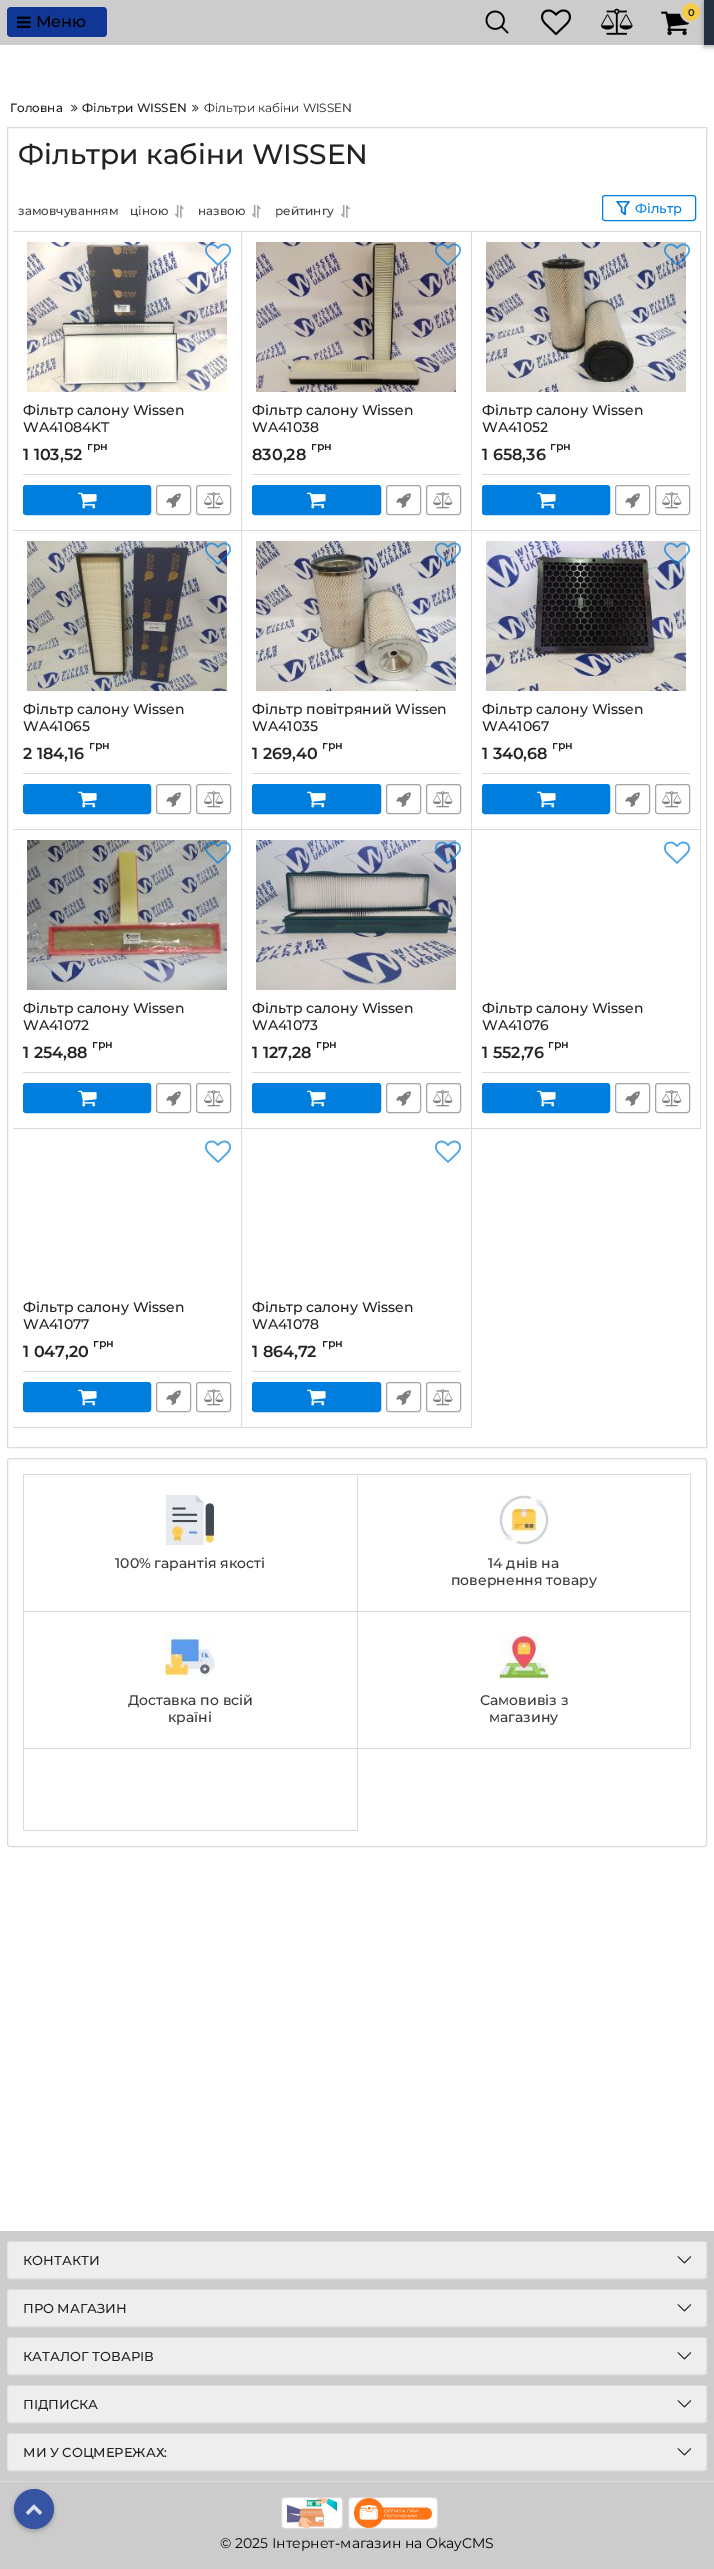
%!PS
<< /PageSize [714 2569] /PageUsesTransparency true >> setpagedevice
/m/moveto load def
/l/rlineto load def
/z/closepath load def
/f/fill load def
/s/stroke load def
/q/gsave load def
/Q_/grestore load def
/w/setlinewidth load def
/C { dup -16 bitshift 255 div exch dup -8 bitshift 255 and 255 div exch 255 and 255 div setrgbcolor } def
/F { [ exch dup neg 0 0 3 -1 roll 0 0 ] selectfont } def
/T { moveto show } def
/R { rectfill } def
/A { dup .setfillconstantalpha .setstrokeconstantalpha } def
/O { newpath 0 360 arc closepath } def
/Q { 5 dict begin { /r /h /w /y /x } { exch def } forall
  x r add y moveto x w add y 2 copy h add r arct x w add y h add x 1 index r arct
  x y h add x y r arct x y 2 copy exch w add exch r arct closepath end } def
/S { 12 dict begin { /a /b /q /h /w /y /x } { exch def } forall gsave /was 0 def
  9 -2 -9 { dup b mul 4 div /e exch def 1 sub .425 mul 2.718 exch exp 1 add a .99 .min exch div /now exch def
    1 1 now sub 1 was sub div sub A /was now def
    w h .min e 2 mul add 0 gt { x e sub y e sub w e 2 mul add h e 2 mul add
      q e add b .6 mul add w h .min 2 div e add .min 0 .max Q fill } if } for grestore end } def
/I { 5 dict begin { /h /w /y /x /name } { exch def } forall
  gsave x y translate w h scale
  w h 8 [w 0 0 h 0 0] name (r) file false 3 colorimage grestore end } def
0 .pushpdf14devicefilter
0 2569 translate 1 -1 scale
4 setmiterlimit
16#FFFFFF C
0 0 714 2569 R
16#CCCCCC C
0 0 704 45 R
(1.rgb) 485 10 24 24 I
(2.rgb) 541 9 30 27 I
(3.rgb) 601 8 32 27 I
(4.rgb) 661 11 28 25 I
16#F5CC43 C
691 12 10 O q f Q_
16#CCCCCC C
2 w
s
/Montserrat-SemiBold 10 F
16#222222 C
(0) 688 16 T
16#103696 C
7 7 100 30 4 Q f
(5.rgb) 17 16 14 12 I
/Montserrat-Medium 16 F
16#000000 C
(Меню) 36 27 T
/Montserrat-Medium 12 F
16#222222 C
(Головна) 10 112 T
(6.rgb) 71 104 7 8 I
(Фільтри WISSEN) 82 112 T
(6.rgb) 192 104 7 8 I
/Montserrat-Regular 12 F
(Фільтри кабіни WISSEN) 204 112 T
16#000000 C
704 2 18 45 0 2.5 .3 S
16#232F3E C
704 0 10 45 R
16#DBDBDB C
1 w
7.5 127.5 699 1320 rectstroke
/Montserrat-Medium 28 F
16#222222 C
(Фільтри кабіни WISSEN) 18 164 T
/Montserrat-Medium 12 F
16#454545 C
(замовчуванням) 18 215 T
(ціною) 130 215 T
(7.rgb) 174 205 10 13 I
(назвою) 198 215 T
(7.rgb) 251 205 10 13 I
(рейтингу) 275 215 T
(7.rgb) 340 205 10 13 I
16#007EDE C
602.5 195.5 93 25 2.5 Q s
q
616 201 14 14 rectclip
1.4 w
1 setlinecap
1 setlinejoin
617 201.5 m 12 0 l -4 6 l 0 7 l -3.5 -3 l 0 -4 l z s
Q_
/Montserrat-Medium 13 F
(Фільтр) 635 213 T
16#DBDBDB C
13 231 688 1 R
241 231 1 300 R
(8.rgb) 27 242 200 150 I
(9.rgb) 205 243 26 23 I
/Montserrat-Medium 14 F
16#222222 C
(Фільтр салону Wissen) 23 415 T
(WA41084KT) 23 432 T
/Montserrat-SemiBold 16 F
(1 103,52) 23 460 T
/Montserrat-SemiBold 11 F
(грн) 87 450 T
16#DBDBDB C
23 474 208 1 R
16#007EDE C
23.5 485.5 127 29 2.5 Q q f Q_
s
(10.rgb) 78 492 19 17 I
16#A5A5A5 C
156.5 485.5 34 29 2.5 Q s
(11.rgb) 166 493 15 15 I
196.5 485.5 34 29 2.5 Q s
(12.rgb) 204 492 20 17 I
16#DBDBDB C
471 231 1 300 R
(13.rgb) 256 242 200 150 I
(14.rgb) 435 243 26 23 I
/Montserrat-Medium 14 F
16#222222 C
(Фільтр салону Wissen) 252 415 T
(WA41038) 252 432 T
/Montserrat-SemiBold 16 F
(830,28) 252 460 T
/Montserrat-SemiBold 11 F
(грн) 311 450 T
16#DBDBDB C
252 474 209 1 R
16#007EDE C
252.5 485.5 128 29 2.5 Q q f Q_
s
(10.rgb) 307 492 19 17 I
16#A5A5A5 C
386.5 485.5 34 29 2.5 Q s
(11.rgb) 396 493 15 15 I
426.5 485.5 34 29 2.5 Q s
(12.rgb) 433 492 20 17 I
16#DBDBDB C
700 231 1 300 R
(15.rgb) 486 242 200 150 I
(16.rgb) 664 243 26 23 I
/Montserrat-Medium 14 F
16#222222 C
(Фільтр салону Wissen) 482 415 T
(WA41052) 482 432 T
/Montserrat-SemiBold 16 F
(1 658,36) 482 460 T
/Montserrat-SemiBold 11 F
(грн) 550 450 T
16#DBDBDB C
482 474 208 1 R
16#007EDE C
482.5 485.5 127 29 2.5 Q q f Q_
s
(10.rgb) 537 492 19 17 I
16#A5A5A5 C
615.5 485.5 34 29 2.5 Q s
(11.rgb) 625 493 15 15 I
655.5 485.5 34 29 2.5 Q s
(12.rgb) 662 492 20 17 I
16#DBDBDB C
13 530 688 1 R
241 530 1 300 R
(17.rgb) 27 541 200 150 I
(18.rgb) 205 542 26 23 I
/Montserrat-Medium 14 F
16#222222 C
(Фільтр салону Wissen) 23 714 T
(WA41065) 23 731 T
/Montserrat-SemiBold 16 F
(2 184,16) 23 759 T
/Montserrat-SemiBold 11 F
(грн) 89 749 T
16#DBDBDB C
23 773 208 1 R
16#007EDE C
23.5 784.5 127 29 2.5 Q q f Q_
s
(10.rgb) 78 791 19 17 I
16#A5A5A5 C
156.5 784.5 34 29 2.5 Q s
(11.rgb) 166 792 15 15 I
196.5 784.5 34 29 2.5 Q s
(12.rgb) 204 791 20 17 I
16#DBDBDB C
471 530 1 300 R
(19.rgb) 256 541 200 150 I
(20.rgb) 435 542 26 23 I
/Montserrat-Medium 14 F
16#222222 C
(Фільтр повітряний Wissen) 252 714 T
(WA41035) 252 731 T
/Montserrat-SemiBold 16 F
(1 269,40) 252 759 T
/Montserrat-SemiBold 11 F
(грн) 322 749 T
16#DBDBDB C
252 773 209 1 R
16#007EDE C
252.5 784.5 128 29 2.5 Q q f Q_
s
(10.rgb) 307 791 19 17 I
16#A5A5A5 C
386.5 784.5 34 29 2.5 Q s
(11.rgb) 396 792 15 15 I
426.5 784.5 34 29 2.5 Q s
(12.rgb) 433 791 20 17 I
16#DBDBDB C
700 530 1 300 R
(21.rgb) 486 541 200 150 I
(22.rgb) 664 542 26 23 I
/Montserrat-Medium 14 F
16#222222 C
(Фільтр салону Wissen) 482 714 T
(WA41067) 482 731 T
/Montserrat-SemiBold 16 F
(1 340,68) 482 759 T
/Montserrat-SemiBold 11 F
(грн) 552 749 T
16#DBDBDB C
482 773 208 1 R
16#007EDE C
482.5 784.5 127 29 2.5 Q q f Q_
s
(10.rgb) 537 791 19 17 I
16#A5A5A5 C
615.5 784.5 34 29 2.5 Q s
(11.rgb) 625 792 15 15 I
655.5 784.5 34 29 2.5 Q s
(12.rgb) 662 791 20 17 I
16#DBDBDB C
13 829 688 1 R
241 829 1 300 R
(23.rgb) 27 840 200 150 I
(24.rgb) 205 841 26 23 I
/Montserrat-Medium 14 F
16#222222 C
(Фільтр салону Wissen) 23 1013 T
(WA41072) 23 1030 T
/Montserrat-SemiBold 16 F
(1 254,88) 23 1058 T
/Montserrat-SemiBold 11 F
(грн) 92 1048 T
16#DBDBDB C
23 1072 208 1 R
16#007EDE C
23.5 1083.5 127 29 2.5 Q q f Q_
s
(10.rgb) 78 1090 19 17 I
16#A5A5A5 C
156.5 1083.5 34 29 2.5 Q s
(11.rgb) 166 1091 15 15 I
196.5 1083.5 34 29 2.5 Q s
(12.rgb) 204 1090 20 17 I
16#DBDBDB C
471 829 1 300 R
(25.rgb) 256 840 200 150 I
(26.rgb) 435 841 26 23 I
/Montserrat-Medium 14 F
16#222222 C
(Фільтр салону Wissen) 252 1013 T
(WA41073) 252 1030 T
/Montserrat-SemiBold 16 F
(1 127,28) 252 1058 T
/Montserrat-SemiBold 11 F
(грн) 316 1048 T
16#DBDBDB C
252 1072 209 1 R
16#007EDE C
252.5 1083.5 128 29 2.5 Q q f Q_
s
(10.rgb) 307 1090 19 17 I
16#A5A5A5 C
386.5 1083.5 34 29 2.5 Q s
(11.rgb) 396 1091 15 15 I
426.5 1083.5 34 29 2.5 Q s
(12.rgb) 433 1090 20 17 I
16#DBDBDB C
700 829 1 300 R
472 1128 229 1 R
(27.rgb) 664 841 26 23 I
/Montserrat-Medium 14 F
16#222222 C
(Фільтр салону Wissen) 482 1013 T
(WA41076) 482 1030 T
/Montserrat-SemiBold 16 F
(1 552,76) 482 1058 T
/Montserrat-SemiBold 11 F
(грн) 548 1048 T
16#DBDBDB C
482 1072 208 1 R
16#007EDE C
482.5 1083.5 127 29 2.5 Q q f Q_
s
(10.rgb) 537 1090 19 17 I
16#A5A5A5 C
615.5 1083.5 34 29 2.5 Q s
(11.rgb) 625 1091 15 15 I
655.5 1083.5 34 29 2.5 Q s
(12.rgb) 662 1090 20 17 I
16#DBDBDB C
13 1128 459 1 R
241 1128 1 300 R
13 1427 229 1 R
(27.rgb) 205 1140 26 23 I
/Montserrat-Medium 14 F
16#222222 C
(Фільтр салону Wissen) 23 1312 T
(WA41077) 23 1329 T
/Montserrat-SemiBold 16 F
(1 047,20) 23 1357 T
/Montserrat-SemiBold 11 F
(грн) 93 1347 T
16#DBDBDB C
23 1371 208 1 R
16#007EDE C
23.5 1382.5 127 29 2.5 Q q f Q_
s
(10.rgb) 78 1389 19 17 I
16#A5A5A5 C
156.5 1382.5 34 29 2.5 Q s
(11.rgb) 166 1390 15 15 I
196.5 1382.5 34 29 2.5 Q s
(12.rgb) 204 1389 20 17 I
16#DBDBDB C
471 1128 1 300 R
242 1427 230 1 R
(27.rgb) 435 1140 26 23 I
/Montserrat-Medium 14 F
16#222222 C
(Фільтр салону Wissen) 252 1312 T
(WA41078) 252 1329 T
/Montserrat-SemiBold 16 F
(1 864,72) 252 1357 T
/Montserrat-SemiBold 11 F
(грн) 322 1347 T
16#DBDBDB C
252 1371 209 1 R
16#007EDE C
252.5 1382.5 128 29 2.5 Q q f Q_
s
(10.rgb) 307 1389 19 17 I
16#A5A5A5 C
386.5 1382.5 34 29 2.5 Q s
(11.rgb) 396 1390 15 15 I
426.5 1382.5 34 29 2.5 Q s
(12.rgb) 433 1389 20 17 I
16#DBDBDB C
7.5 1458.5 699 388 2.5 Q s
23 1474 668 1 R
23 1474 1 357 R
357 1475 1 356 R
24 1611 334 1 R
(28.rgb) 165 1495 50 50 I
/Montserrat-Medium 14 F
16#3A3A3A C
(100% гарантія якості) 115 1568 T
16#DBDBDB C
690 1475 1 274 R
358 1611 333 1 R
(29.rgb) 499 1495 50 50 I
16#3A3A3A C
(14 днів на) 488 1568 T
(повернення товару) 451 1585 T
16#DBDBDB C
24 1748 667 1 R
(30.rgb) 165 1632 50 48 I
16#3A3A3A C
(Доставка по всій) 128 1705 T
(країні) 168 1722 T
(31.rgb) 499 1632 50 49 I
(Самовивіз з) 480 1705 T
(магазину) 489 1722 T
16#DBDBDB C
24 1830 334 1 R
16#CCCCCC C
0 2231 714 338 R
16#EEEEEE C
7.5 2241.5 699 37 2.5 Q q f Q_
16#E2E2E2 C
s
/Montserrat-Medium 13 F
16#222222 C
(КОНТАКТИ) 23 2265 T
(32.rgb) 677 2256 14 8 I
16#EEEEEE C
7.5 2289.5 699 37 2.5 Q q f Q_
16#E2E2E2 C
s
16#222222 C
(ПРО МАГАЗИН) 23 2313 T
(32.rgb) 677 2304 14 8 I
16#EEEEEE C
7.5 2337.5 699 37 2.5 Q q f Q_
16#E2E2E2 C
s
16#222222 C
(КАТАЛОГ ТОВАРІВ) 23 2361 T
(32.rgb) 677 2352 14 8 I
16#EEEEEE C
7.5 2385.5 699 37 2.5 Q q f Q_
16#E2E2E2 C
s
16#222222 C
(ПІДПИСКА) 23 2409 T
(32.rgb) 677 2400 14 8 I
16#EEEEEE C
7.5 2433.5 699 37 2.5 Q q f Q_
16#E2E2E2 C
s
16#222222 C
(МИ У СОЦМЕРЕЖАХ:) 23 2457 T
(32.rgb) 677 2448 14 8 I
16#DBDBDB C
0 2481 714 1 R
16#FFFDFD C
281.5 2497.5 61 31 3.5 Q q f Q_
16#DBDBDB C
s
(33.rgb) 287 2498 50 30 I
16#FFFDFD C
348.5 2497.5 89 31 3.5 Q q f Q_
16#DBDBDB C
s
(34.rgb) 354 2498 78 30 I
/Montserrat-Regular 14 F
16#000000 C
(© 2025 Інтернет-магазин на OkayCMS) 220 2548 T
16#292929 C
14 2491 40 40 20 2.5 .3 S
16#3654A1 C
34 2509 20 O f
(35.rgb) 26 2504 16 11 I
.poppdf14devicefilter showpage
